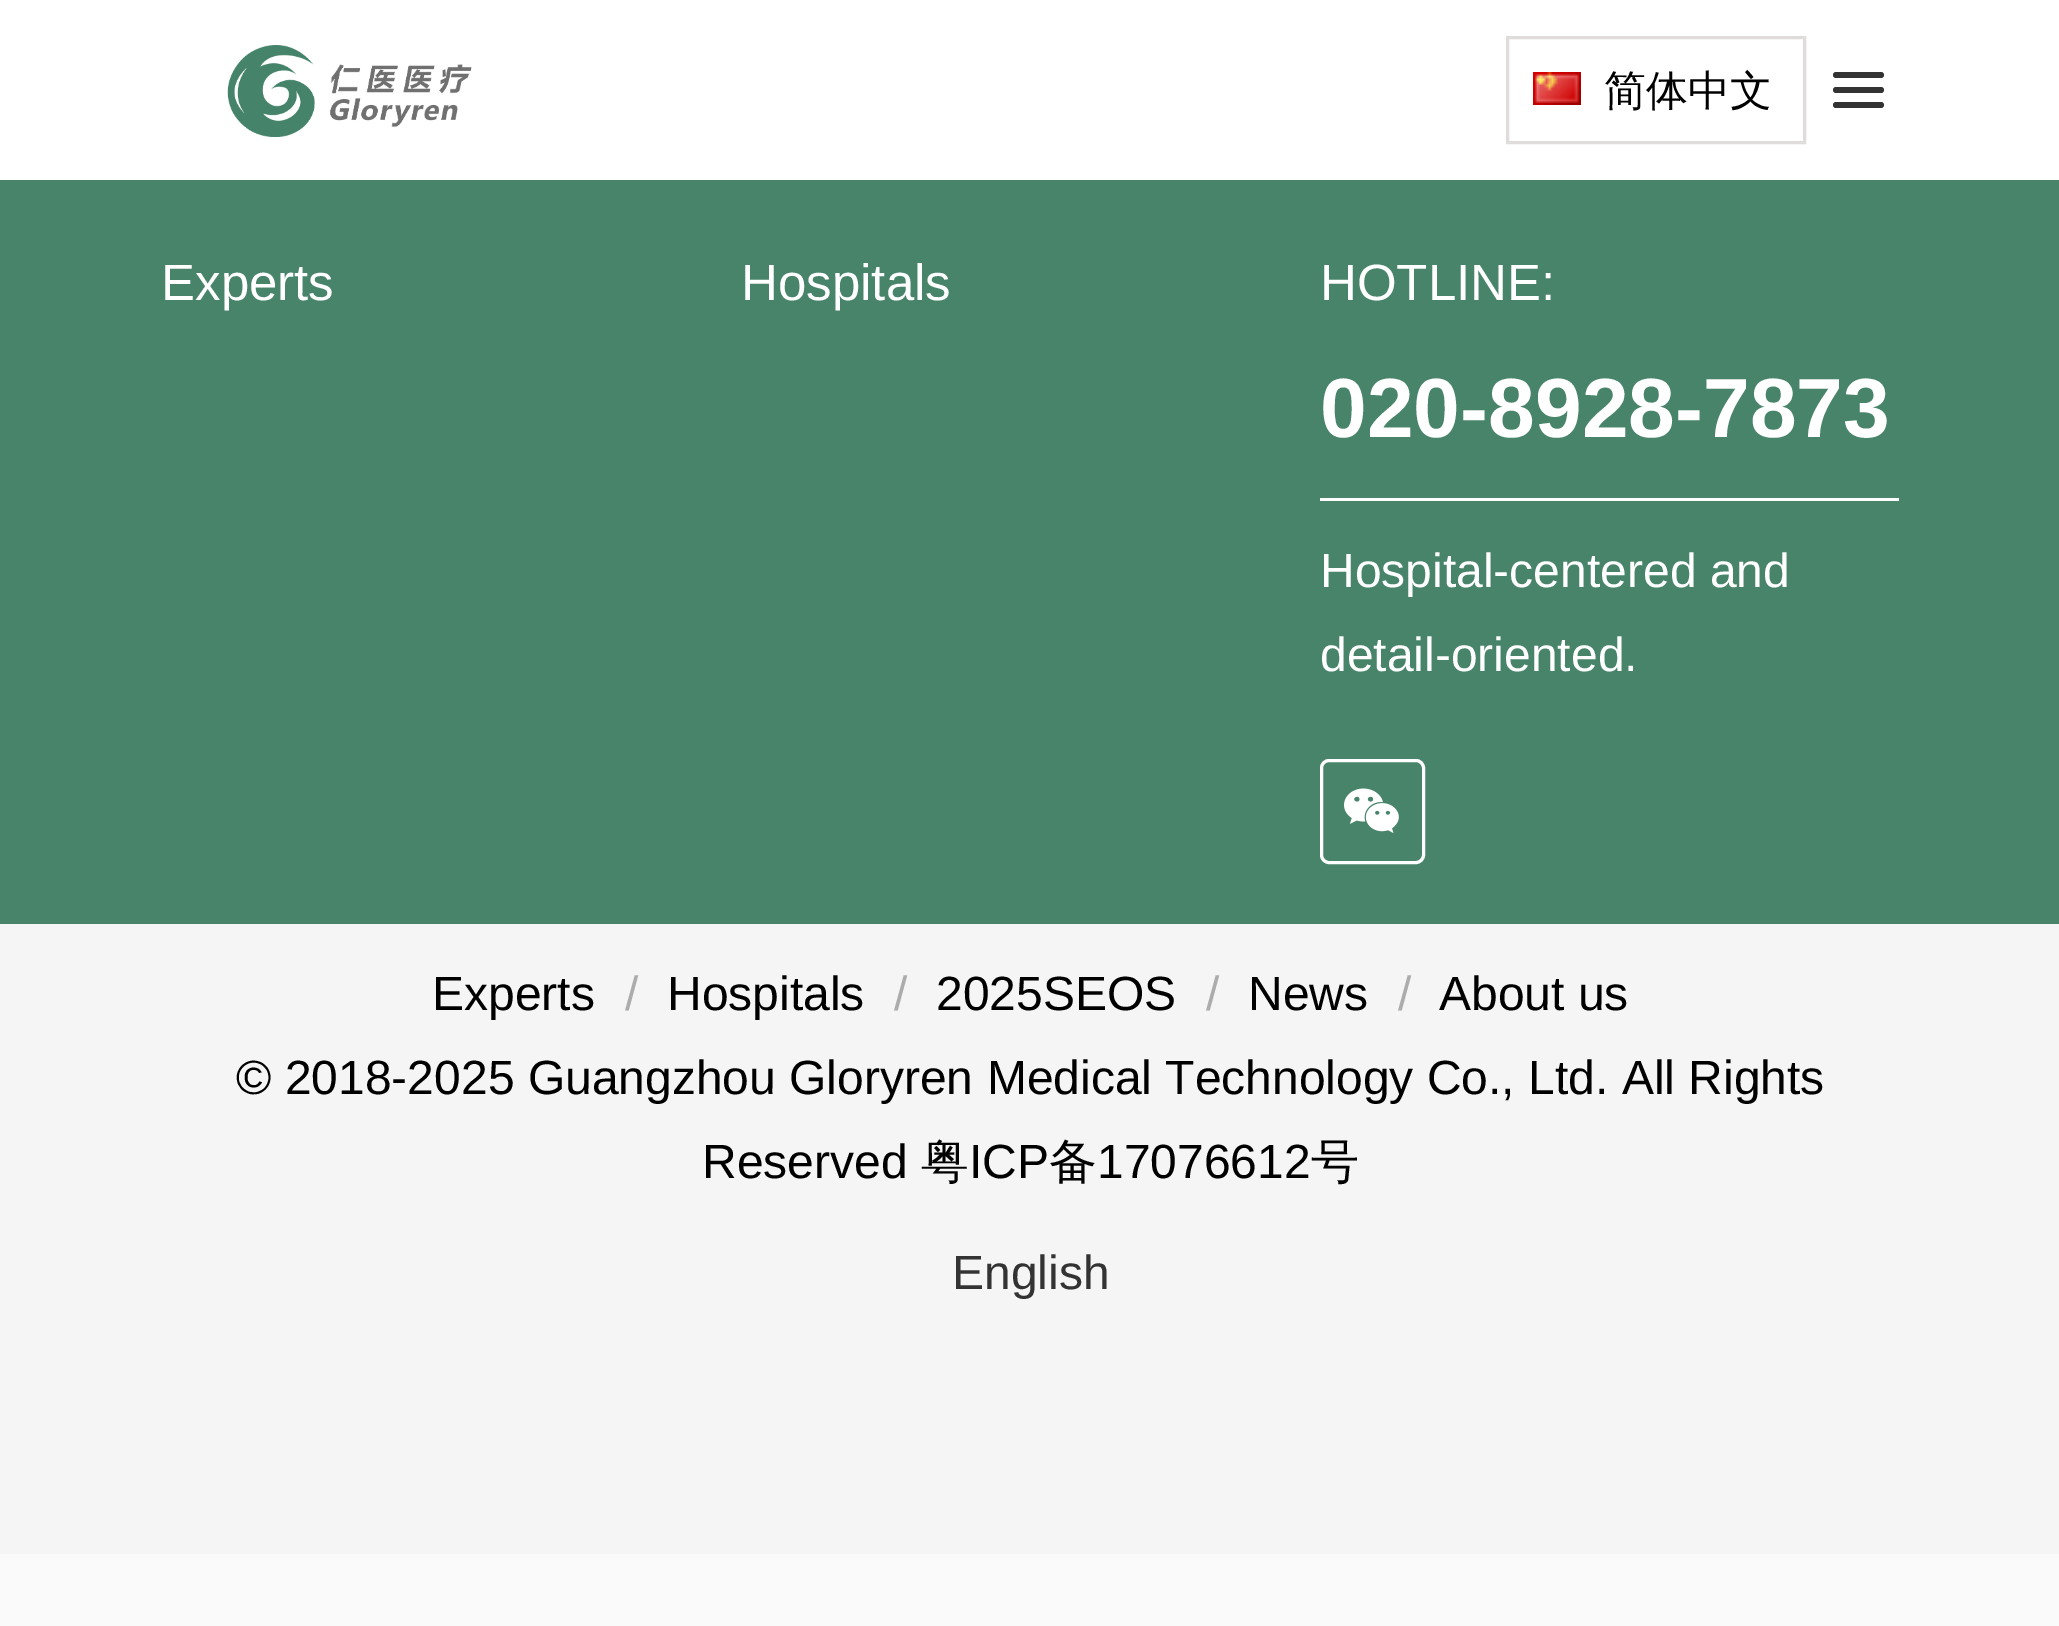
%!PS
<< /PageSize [2059 1626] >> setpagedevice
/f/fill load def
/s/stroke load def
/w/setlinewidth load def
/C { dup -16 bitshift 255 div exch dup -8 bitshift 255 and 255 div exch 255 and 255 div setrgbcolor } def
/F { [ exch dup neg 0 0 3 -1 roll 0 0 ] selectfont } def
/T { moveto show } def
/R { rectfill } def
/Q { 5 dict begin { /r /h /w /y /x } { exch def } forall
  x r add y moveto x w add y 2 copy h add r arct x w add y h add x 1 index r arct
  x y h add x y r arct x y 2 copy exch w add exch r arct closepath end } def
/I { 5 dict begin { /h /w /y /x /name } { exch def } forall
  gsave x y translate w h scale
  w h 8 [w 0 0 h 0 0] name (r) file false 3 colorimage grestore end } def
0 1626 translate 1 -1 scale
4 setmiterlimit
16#FAFAFA C
0 0 2059 1626 R
16#FFFFFF C
0 0 2059 180 R
(1.rgb) 227 45 245 92 I
16#333333 C
1833 72 51 6 3 Q f
1833 87 51 6 3 Q f
1833 102 51 6 3 Q f
16#E0DCDC C
3 w
1507.5 37.5 297 105 rectstroke
(2.rgb) 1533 72 48 33 I
/WenQuanYiZenHei-Medium 42 F
16#000000 C
(简体中文) 1604 105 T
16#47846A C
0 180 2059 744 R
/LiberationSans-Regular 51 F
16#FFFFFF C
(Experts) 161 300 T
(Hospitals) 741 300 T
(HOTLINE:) 1320 300 T
1320 498 579 3 R
/LiberationSans-Bold 84 F
(020-8928-7873) 1320 437 T
/LiberationSans-Regular 48 F
(Hospital-centered and) 1320 587 T
(detail-oriented.) 1320 671 T
1321.5 760.5 102 102 7.5 Q s
(3.rgb) 1344 788 55 46 I
16#F5F5F5 C
0 924 2059 630 R
16#000000 C
(Experts) 432 1010 T
16#ACACAC C
(/) 625 1010 T
16#000000 C
(Hospitals) 667 1010 T
16#ACACAC C
(/) 894 1010 T
16#000000 C
(2025SEOS) 936 1010 T
16#ACACAC C
(/) 1206 1010 T
16#000000 C
(News) 1248 1010 T
16#ACACAC C
(/) 1398 1010 T
16#000000 C
(About us) 1439 1010 T
(© 2018-2025 Guangzhou Gloryren Medical Technology Co., Ltd. All Rights) 236 1094 T
(Reserved) 702 1178 T
/WenQuanYiZenHei-Medium 48 F
(粤) 921 1178 T
/LiberationSans-Regular 48 F
(ICP) 969 1178 T
/WenQuanYiZenHei-Medium 48 F
(备) 1049 1178 T
/LiberationSans-Regular 48 F
(17076612) 1097 1178 T
/WenQuanYiZenHei-Medium 48 F
(号) 1311 1178 T
/LiberationSans-Regular 48 F
16#333333 C
(English) 952 1289 T
showpage
